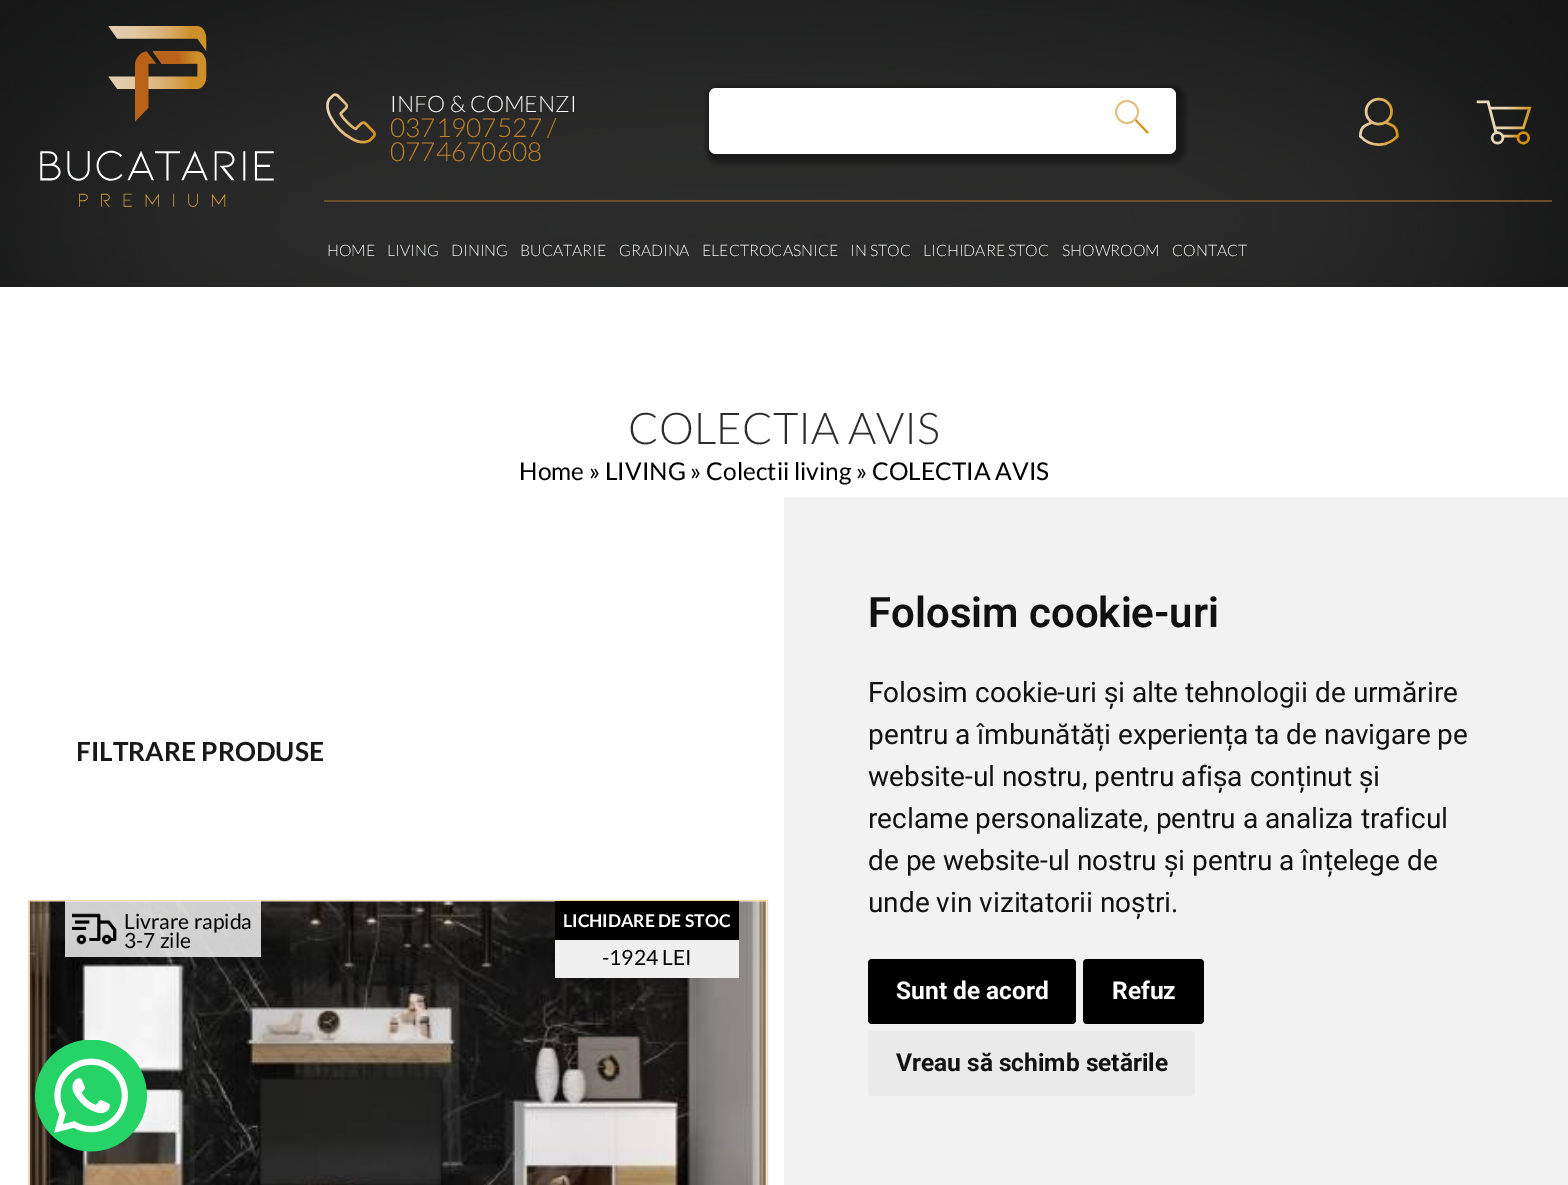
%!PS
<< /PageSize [1568 1185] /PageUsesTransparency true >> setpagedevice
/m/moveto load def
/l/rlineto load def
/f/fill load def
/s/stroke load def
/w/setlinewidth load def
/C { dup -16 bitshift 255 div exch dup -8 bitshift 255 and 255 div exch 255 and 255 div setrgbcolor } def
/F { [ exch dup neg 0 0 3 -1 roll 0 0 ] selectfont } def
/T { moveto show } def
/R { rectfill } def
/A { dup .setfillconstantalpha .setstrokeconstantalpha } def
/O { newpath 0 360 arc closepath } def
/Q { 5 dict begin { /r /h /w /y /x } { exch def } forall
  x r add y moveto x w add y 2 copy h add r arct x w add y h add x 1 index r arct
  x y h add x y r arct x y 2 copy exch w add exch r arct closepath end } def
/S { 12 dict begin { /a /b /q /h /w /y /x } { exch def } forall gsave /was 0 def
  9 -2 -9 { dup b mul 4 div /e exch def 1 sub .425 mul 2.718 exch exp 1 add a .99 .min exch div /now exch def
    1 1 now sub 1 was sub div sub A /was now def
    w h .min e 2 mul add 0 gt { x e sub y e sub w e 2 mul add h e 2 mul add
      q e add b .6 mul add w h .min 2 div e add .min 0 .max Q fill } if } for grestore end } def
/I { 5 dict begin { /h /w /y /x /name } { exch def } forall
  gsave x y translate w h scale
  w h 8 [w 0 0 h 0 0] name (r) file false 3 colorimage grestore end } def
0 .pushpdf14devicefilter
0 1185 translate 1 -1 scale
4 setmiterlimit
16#FFFFFF C
0 0 1568 1185 R
(1.rgb) 0 0 1568 287 I
(2.rgb) 40 26 234 181 I
(3.rgb) 326 93 50 51 I
/Lato-Light 22.75 F
(INFO & COMENZI) 390 112 T
/Lato-Light 26.25 F
16#C38222 C
(0371907527 /) 390 137 T
(0774670608) 390 161 T
16#000000 C
707 86 478 77 12 2.5 .4 S
16#FFFFFF C
709 88 467 66 7 Q f
16#D39418 C
1.9 w
1135 119.5 m 13 13.5 l s
16#E2BF83 C
1127 112 11 O s
(4.rgb) 1359 97 40 49 I
(5.rgb) 1476 100 56 45 I
16#684E27 C
324 200 1228 2 R
/Lato-Light 15.75 F
16#FFFFFF C
(HOME) 327 256 T
(LIVING) 387 256 T
(DINING) 451 256 T
(BUCATARIE) 520 256 T
(GRADINA) 619 256 T
(ELECTROCASNICE) 702 256 T
(IN STOC) 850 256 T
(LICHIDARE STOC) 923 256 T
(SHOWROOM) 1062 256 T
(CONTACT) 1172 256 T
/Lato-Light 43.75 F
16#2B2C2C C
(COLECTIA AVIS) 628 444 T
/Lato-Regular 24.5 F
16#000000 C
(Home » LIVING » Colectii living » COLECTIA AVIS) 519 480 T
/Lato-Bold 26.25 F
16#1A1919 C
(FILTRARE PRODUSE) 76 761 T
16#F2D7A9 C
2 w
29 901 738 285 rectstroke
16#FFFFFF C
30 901 737 284 R
(6.rgb) 29 901 738 284 I
0.8 A
65 901 196 56 R
1 A
(7.rgb) 72 913 45 32 I
/Lato-Regular 21 F
16#000000 C
(Livrare rapida) 124 929 T
(3-7 zile) 124 948 T
16#F0F0F0 C
555 940 184 38 R
16#000000 C
555 901 184 39 R
/Lato-Bold 17.5 F
16#FFFFFF C
(LICHIDARE DE STOC) 563 927 T
/Lato-Regular 21 F
16#000000 C
(-1924 LEI) 602 965 T
(8.rgb) 35 1040 112 112 I
16#F2F2F2 C
784 497 784 688 R
/Roboto-SemiBold 42 F
16#111111 C
(Folosim cookie-uri) 868 627 T
/Roboto-Regular 28 F
(Folosim cookie-uri și alte tehnologii de urmărire) 868 702 T
(pentru a îmbunătăți experiența ta de navigare pe) 868 744 T
(website-ul nostru, pentru afișa conținut și) 868 786 T
(reclame personalizate, pentru a analiza traficul) 868 828 T
(de pe website-ul nostru și pentru a înțelege de) 868 870 T
(unde vin vizitatorii noștri.) 868 912 T
16#000000 C
868 959 208 65 4 Q f
/Roboto-Bold 24.5 F
16#FFFFFF C
(Sunt de acord) 896 999 T
16#000000 C
1083 959 121 65 4 Q f
16#FFFFFF C
(Refuz) 1112 999 T
16#EAEAEA C
868 1031 327 65 4 Q f
16#111111 C
(Vreau să schimb setările) 896 1071 T
.poppdf14devicefilter showpage
